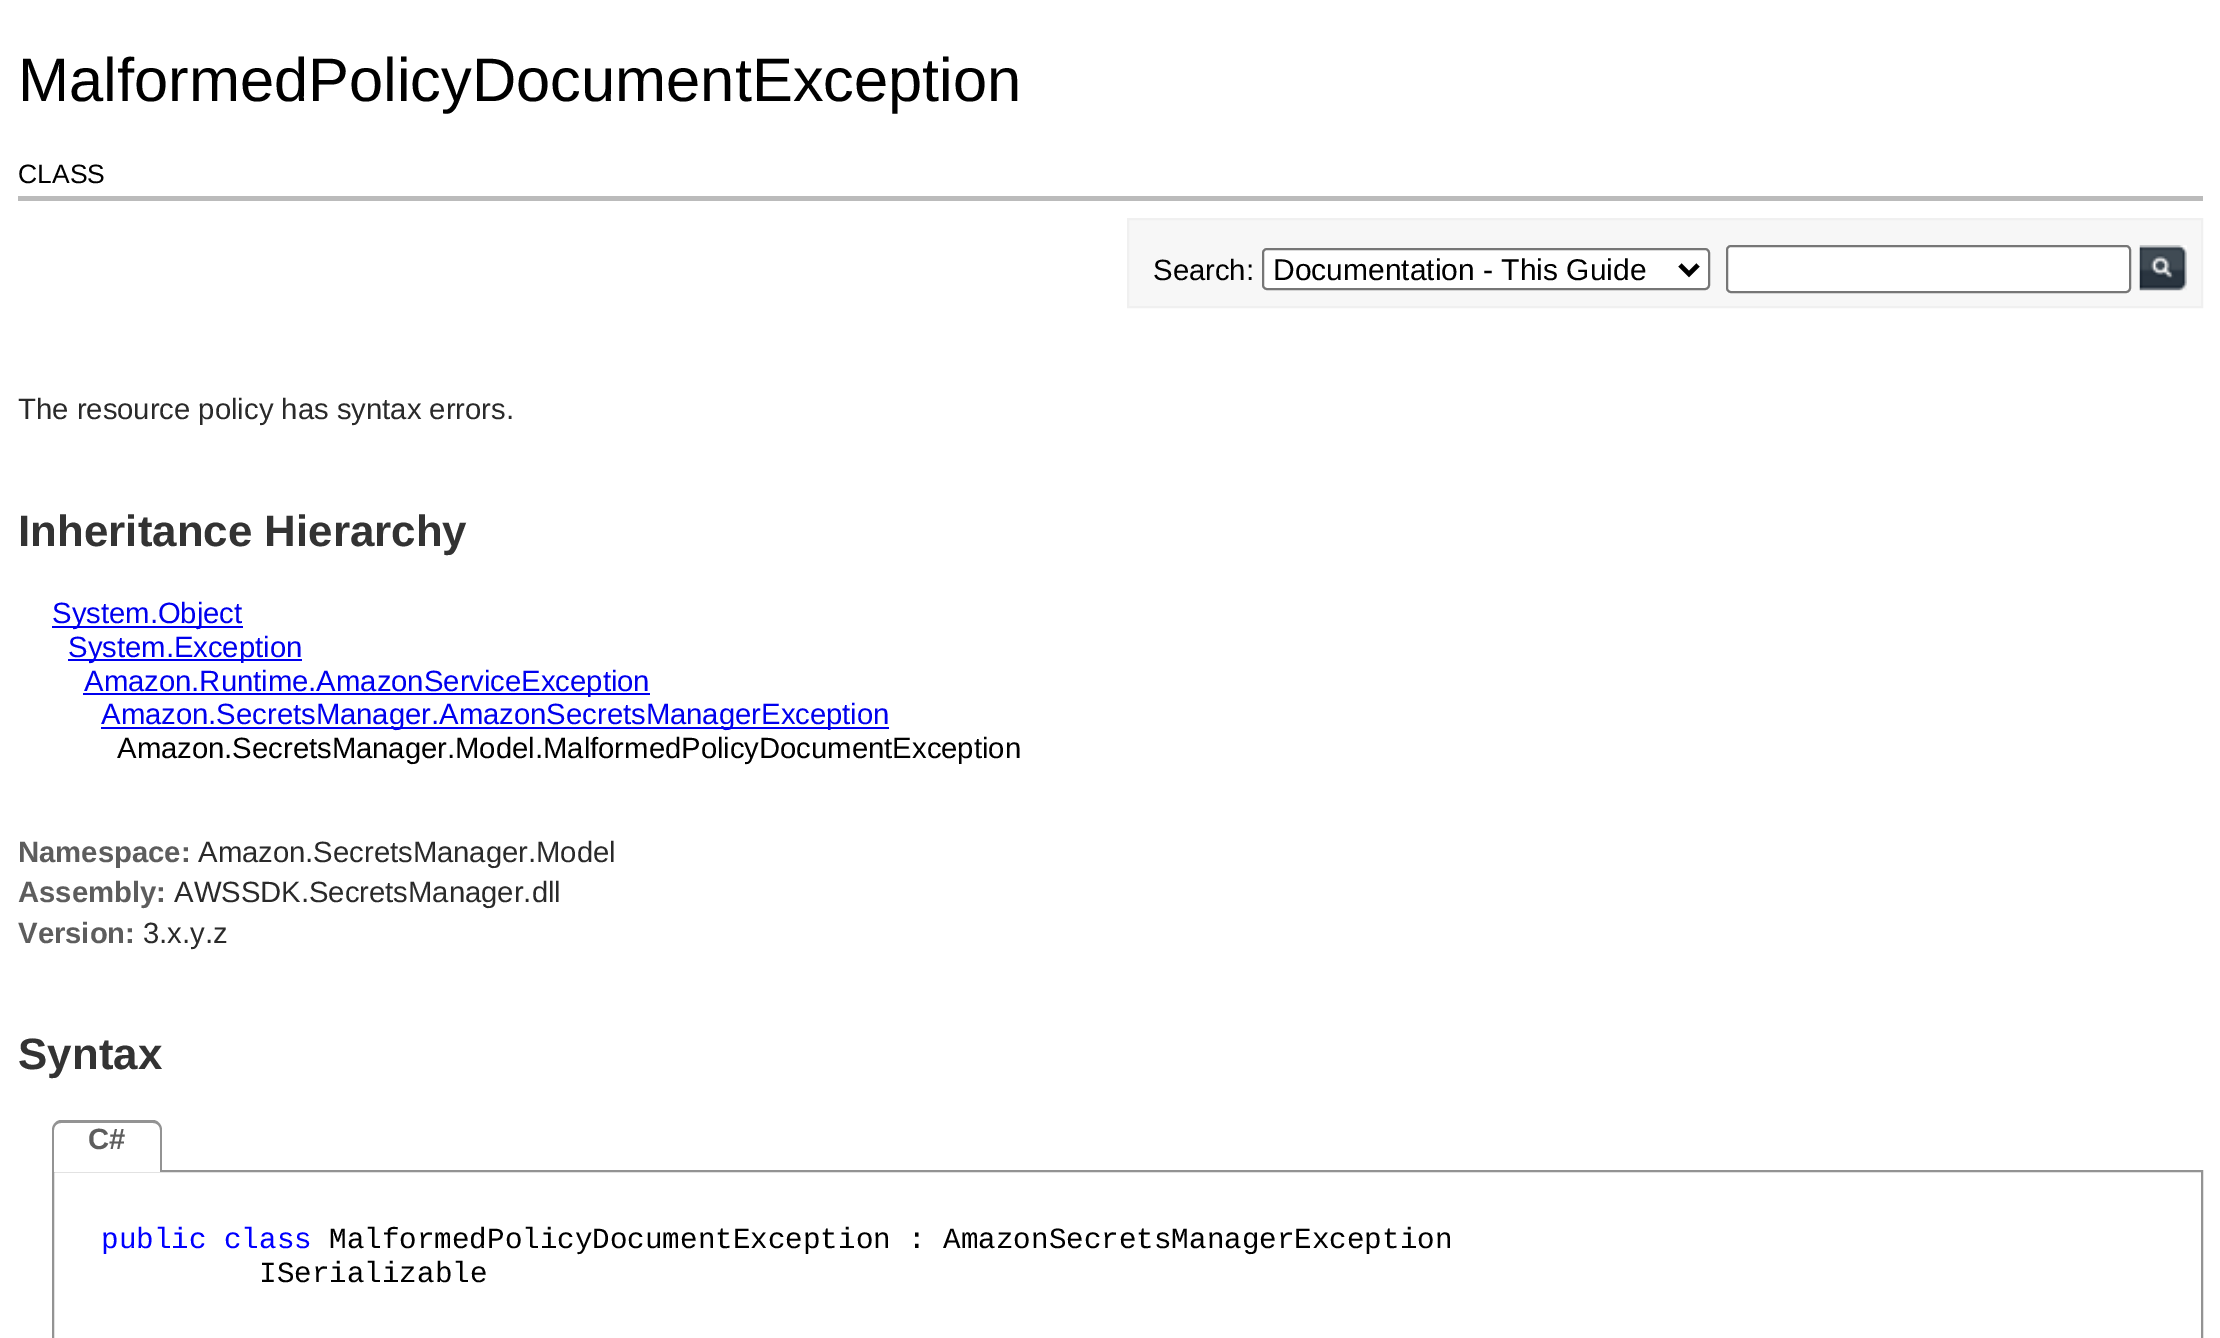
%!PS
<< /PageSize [2220 1338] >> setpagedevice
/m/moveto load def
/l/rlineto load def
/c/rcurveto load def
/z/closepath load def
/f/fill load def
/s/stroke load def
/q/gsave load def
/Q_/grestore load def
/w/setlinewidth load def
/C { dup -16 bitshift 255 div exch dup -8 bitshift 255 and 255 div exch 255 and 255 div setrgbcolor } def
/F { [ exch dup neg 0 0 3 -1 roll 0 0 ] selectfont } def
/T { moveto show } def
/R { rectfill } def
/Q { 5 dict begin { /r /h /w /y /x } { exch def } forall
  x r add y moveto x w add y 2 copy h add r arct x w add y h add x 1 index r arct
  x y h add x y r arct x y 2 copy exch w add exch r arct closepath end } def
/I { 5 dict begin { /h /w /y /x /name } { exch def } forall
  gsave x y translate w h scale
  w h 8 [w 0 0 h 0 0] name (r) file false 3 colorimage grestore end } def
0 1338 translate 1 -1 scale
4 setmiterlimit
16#FFFFFF C
0 0 2220 1338 R
16#BBBBBB C
18 196 2185 5 R
/LiberationSans-Regular 61.4 F
16#000000 C
(MalformedPolicyDocumentException) 18 101 T
/LiberationSans-Regular 26.5 F
(CLASS) 18 183 T
16#F7F7F7 C
1128 219 m 1074 0 l 0 88 l -1074 0 l z q f Q_
16#F0F0F0 C
2 w
s
/LiberationSans-Regular 29.25 F
16#000000 C
(Search:) 1153 280 T
16#FFFFFF C
1263 249 446 40 4 Q q f Q_
16#767676 C
s
16#000000 C
4.5 w
1680 265 m 9 9 l 9 -9 l s
/LiberationSans-Regular 30 F
(Documentation - This Guide) 1273 280 T
16#FFFFFF C
1727 246 403 46 4 Q q f Q_
16#767676 C
2 w
s
(1.rgb) 2139 245 48 46 I
/LiberationSans-Regular 29.25 F
16#2A2A2A C
(The resource policy has syntax errors.) 18 419 T
/LiberationSans-Bold 43.9 F
16#333333 C
(Inheritance Hierarchy) 18 546 T
16#0000EE C
52 626 191 2 R
/LiberationSans-Regular 29.25 F
(System.Object) 52 623 T
68 659 234 2 R
(System.Exception) 68 657 T
83 693 567 2 R
(Amazon.Runtime.AmazonServiceException) 84 691 T
101 727 788 2 R
(Amazon.SecretsManager.AmazonSecretsManagerException) 101 724 T
16#000000 C
(Amazon.SecretsManager.Model.MalformedPolicyDocumentException) 117 758 T
/LiberationSans-Bold 29.25 F
16#5D5D5D C
(Namespace:) 18 862 T
/LiberationSans-Regular 29.25 F
16#2A2A2A C
(Amazon.SecretsManager.Model) 198 862 T
/LiberationSans-Bold 29.25 F
16#5D5D5D C
(Assembly:) 18 902 T
/LiberationSans-Regular 29.25 F
16#2A2A2A C
(AWSSDK.SecretsManager.dll) 174 902 T
/LiberationSans-Bold 29.25 F
16#5D5D5D C
(Version:) 18 943 T
/LiberationSans-Regular 29.25 F
16#2A2A2A C
(3.x.y.z) 143 943 T
/LiberationSans-Bold 43.9 F
16#333333 C
(Syntax) 18 1069 T
16#939393 C
53 1171 2149 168 rectstroke
16#FFFFFF C
61 1121 m 92 0 l 5 0 9 4 9 9 c 0 42 l -110 0 l 0 -42 l 0 -5 4 -9 9 -9 c z f
16#939393 C
61 1120 m 92 0 l 5 0 9 5 9 10 c 0 42 l -110 0 l 0 -42 l 0 -5 4 -10 9 -10 c z 61 1123 m 92 0 l 4 0 7 3 7 7 c 0 42 l -106 0 l 0 -42 l 0 -4 3 -7 7 -7 c z eofill
/LiberationSans-Bold 29.25 F
16#5D5D5D C
(C#) 88 1149 T
/LiberationMono-Regular 29.25 F
16#0000FF C
(public class) 101 1248 T
16#000000 C
(MalformedPolicyDocumentException : AmazonSecretsManagerException) 329 1248 T
(ISerializable) 259 1282 T
showpage
